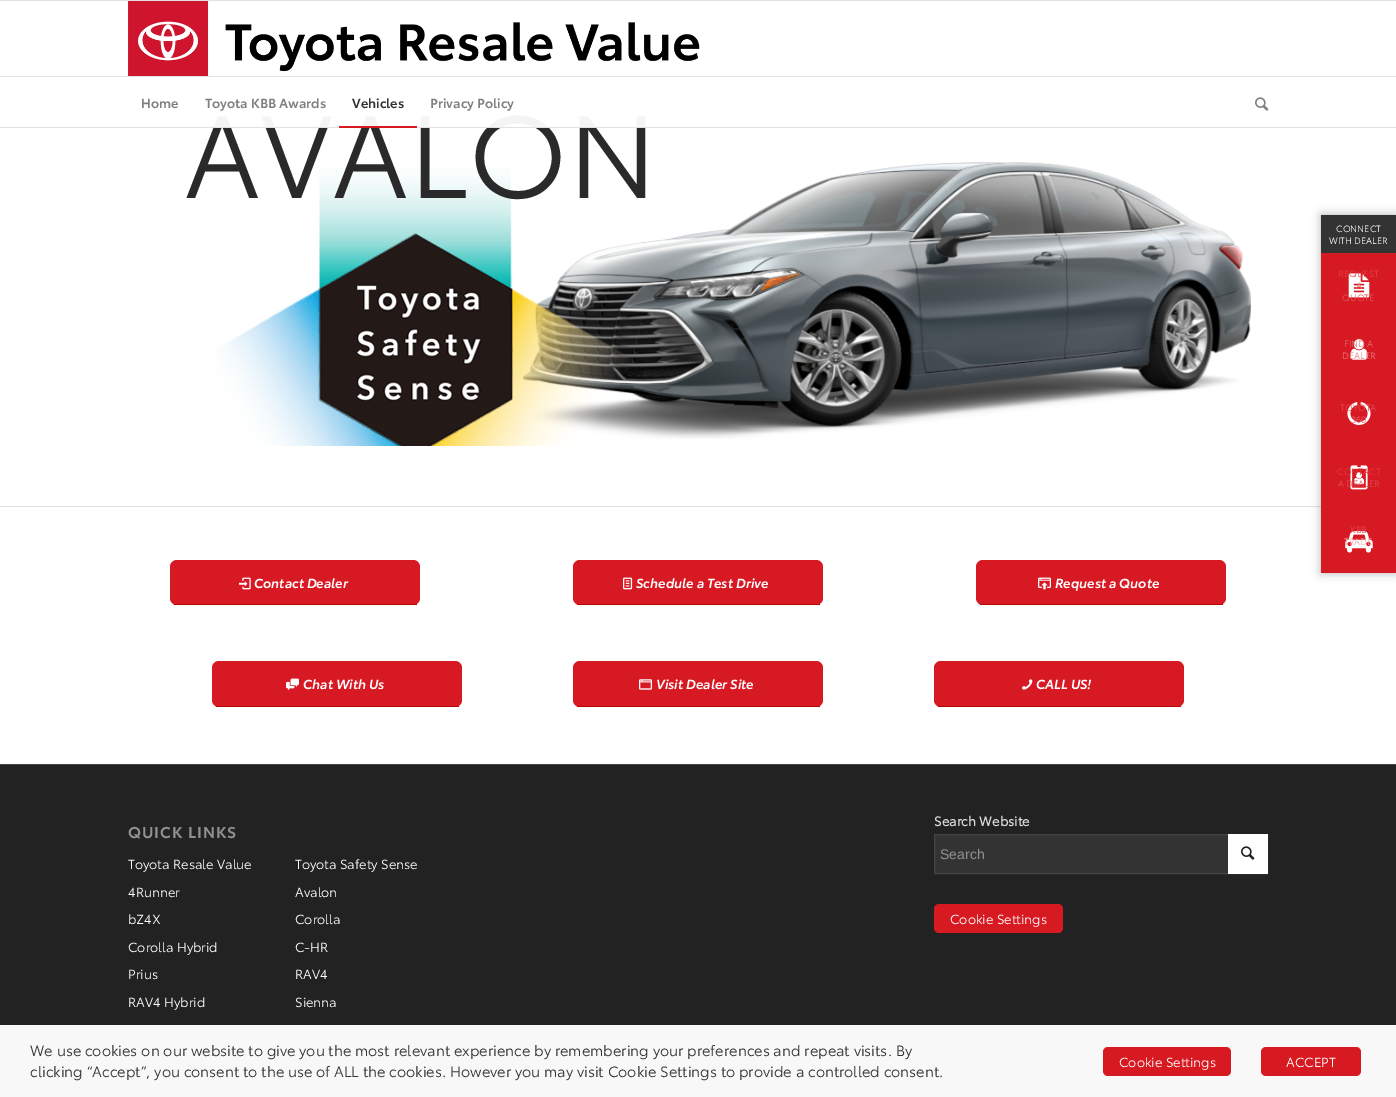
%!PS
<< /PageSize [1396 1097] /PageUsesTransparency true >> setpagedevice
/m/moveto load def
/f/fill load def
/C { dup -16 bitshift 255 div exch dup -8 bitshift 255 and 255 div exch 255 and 255 div setrgbcolor } def
/F { [ exch dup neg 0 0 3 -1 roll 0 0 ] selectfont } def
/T { moveto show } def
/R { rectfill } def
/A { dup .setfillconstantalpha .setstrokeconstantalpha } def
/Q { 5 dict begin { /r /h /w /y /x } { exch def } forall
  x r add y moveto x w add y 2 copy h add r arct x w add y h add x 1 index r arct
  x y h add x y r arct x y 2 copy exch w add exch r arct closepath end } def
/S { 12 dict begin { /a /b /q /h /w /y /x } { exch def } forall gsave /was 0 def
  9 -2 -9 { dup b mul 4 div /e exch def 1 sub .425 mul 2.718 exch exp 1 add a .99 .min exch div /now exch def
    1 1 now sub 1 was sub div sub A /was now def
    w h .min e 2 mul add 0 gt { x e sub y e sub w e 2 mul add h e 2 mul add
      q e add b .6 mul add w h .min 2 div e add .min 0 .max Q fill } if } for grestore end } def
/I { 5 dict begin { /h /w /y /x /name } { exch def } forall
  gsave x y translate w h scale
  w h 8 [w 0 0 h 0 0] name (r) file false 3 colorimage grestore end } def
0 .pushpdf14devicefilter
0 1097 translate 1 -1 scale
4 setmiterlimit
16#FFFFFF C
0 0 1396 1097 R
16#E1E1E1 C
0 0 1396 1 R
(5.rgb) 661 167 490 75 I
(3.rgb) 522 162 729 277 I
(4.rgb) 215 168 418 278 I
/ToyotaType-Regular 115 F
16#2A2A2A C
(AVALON) 184 198 T
16#E1E1E1 C
0 127 1396 1 R
(1.rgb) 128 1 572 75 I
0 76 1396 1 R
/ToyotaType-SemiBold 13 F
16#808080 C
(Home) 141 108 T
(Toyota KBB Awards) 205 108 T
16#333333 C
(Vehicles) 352 108 T
0.95 A
16#FFFFFF C
214 115 432 12 R
1 A
16#D71923 C
339 126 78 2 R
16#808080 C
(Privacy Policy) 430 108 T
(2.rgb) 1255 97 14 14 I
16#E1E1E1 C
0 506 1321 1 R
16#000000 C
1321 215 75 358 0 5 .3 S
16#333333 C
1321 215 75 38 R
/ToyotaType-Regular 9 F
16#FFFFFF C
(CONNECT) 1336 232 T
(WITH DEALER) 1329 244 T
16#D71923 C
1321 253 75 320 R
(6.rgb) 1348 273 22 25 I
16#DE444C C
(REQUEST) 1338 277 T
16#EA898E C
(A) 1356 289 T
16#E2585F C
(QUOTE) 1342 301 T
(7.rgb) 1350 339 18 21 I
16#E56A70 C
(FIND A) 1344 347 T
16#E98187 C
(DEALER) 1342 359 T
(8.rgb) 1347 402 24 23 I
16#E04D55 C
(TOYOTA) 1340 411 T
16#E56A70 C
(360) 1351 423 T
(9.rgb) 1350 465 18 25 I
16#DD3B43 C
(CONTACT) 1337 475 T
16#E04D55 C
(A DEALER) 1338 487 T
(10.rgb) 1345 531 28 22 I
(KBB) 1350 533 T
16#F1AEB1 C
(TRADE) 1344 545 T
16#D71923 C
170 560 250 45 7 Q f
16#B50701 C
174 604 243 1 R
(11.rgb) 239 577 12 13 I
/ToyotaType-SemiBoldItalic 13 F
16#FFFFFF C
(Contact Dealer) 254 588 T
16#D71923 C
573 560 250 45 7 Q f
16#B50701 C
577 604 243 1 R
(12.rgb) 623 577 10 13 I
16#FFFFFF C
(Schedule a Test Drive) 636 588 T
16#D71923 C
976 560 250 45 7 Q f
16#B50701 C
980 604 243 1 R
(13.rgb) 1038 577 13 13 I
16#FFFFFF C
(Request a Quote) 1055 588 T
16#D71923 C
212 661 250 46 7 Q f
16#B50701 C
216 706 243 1 R
(14.rgb) 286 678 13 13 I
16#FFFFFF C
(Chat With Us) 303 689 T
16#D71923 C
573 661 250 46 7 Q f
16#B50701 C
577 706 243 1 R
(15.rgb) 639 679 13 11 I
16#FFFFFF C
(Visit Dealer Site) 656 689 T
16#D71923 C
934 661 250 46 7 Q f
16#B50701 C
938 706 243 1 R
(16.rgb) 1022 679 11 11 I
16#FFFFFF C
(CALL US!) 1036 689 T
16#222222 C
0 765 1396 332 R
16#444444 C
0 764 1396 1 R
/ToyotaType-SemiBold 15.5 F
16#919191 C
128 838 m 1 0 (QUICK LINKS) ashow
/ToyotaType-Regular 13 F
16#FFFFFF C
(Toyota Resale Value) 128 869 T
(Toyota Safety Sense) 295 869 T
(4Runner) 128 897 T
(Avalon) 295 897 T
(bZ4X) 128 924 T
(Corolla) 295 924 T
(Corolla Hybrid) 128 952 T
(C-HR) 295 952 T
(Prius) 128 979 T
(RAV4) 295 979 T
(RAV4 Hybrid) 128 1007 T
(Sienna) 295 1007 T
/ToyotaType-Bold 13 F
16#DDDDDD C
(Search Website) 934 826 T
16#333333 C
935 835 293 38 R
16#444444 C
934.5 834.5 333 39 rectstroke
/LiberationSans-Regular 14 F
16#919191 C
(Search) 940 859 T
16#FFFFFF C
1228 834 40 40 R
(17.rgb) 1241 846 14 14 I
16#D71921 C
934 904 129 29 5 Q f
/ToyotaType-Regular 13 F
16#FFFFFF C
(Cookie Settings) 950 924 T
0.97 A
0 1025 1396 72 R
/ToyotaType-Regular 14.67 F
1 A
16#333333 C
(We use cookies on our website to give you the most relevant experience by remembering your preferences and repeat visits. By) 30 1056 T
(clicking “Accept”, you consent to the use of ALL the cookies. However you may visit Cookie Settings to provide a controlled consent.) 30 1077 T
16#D71921 C
1103 1047 128 29 5 Q f
/ToyotaType-Regular 13 F
16#FFFFFF C
(Cookie Settings) 1119 1067 T
16#D71921 C
1261 1047 100 29 5 Q f
16#FFFFFF C
(ACCEPT) 1286 1067 T
.poppdf14devicefilter showpage
